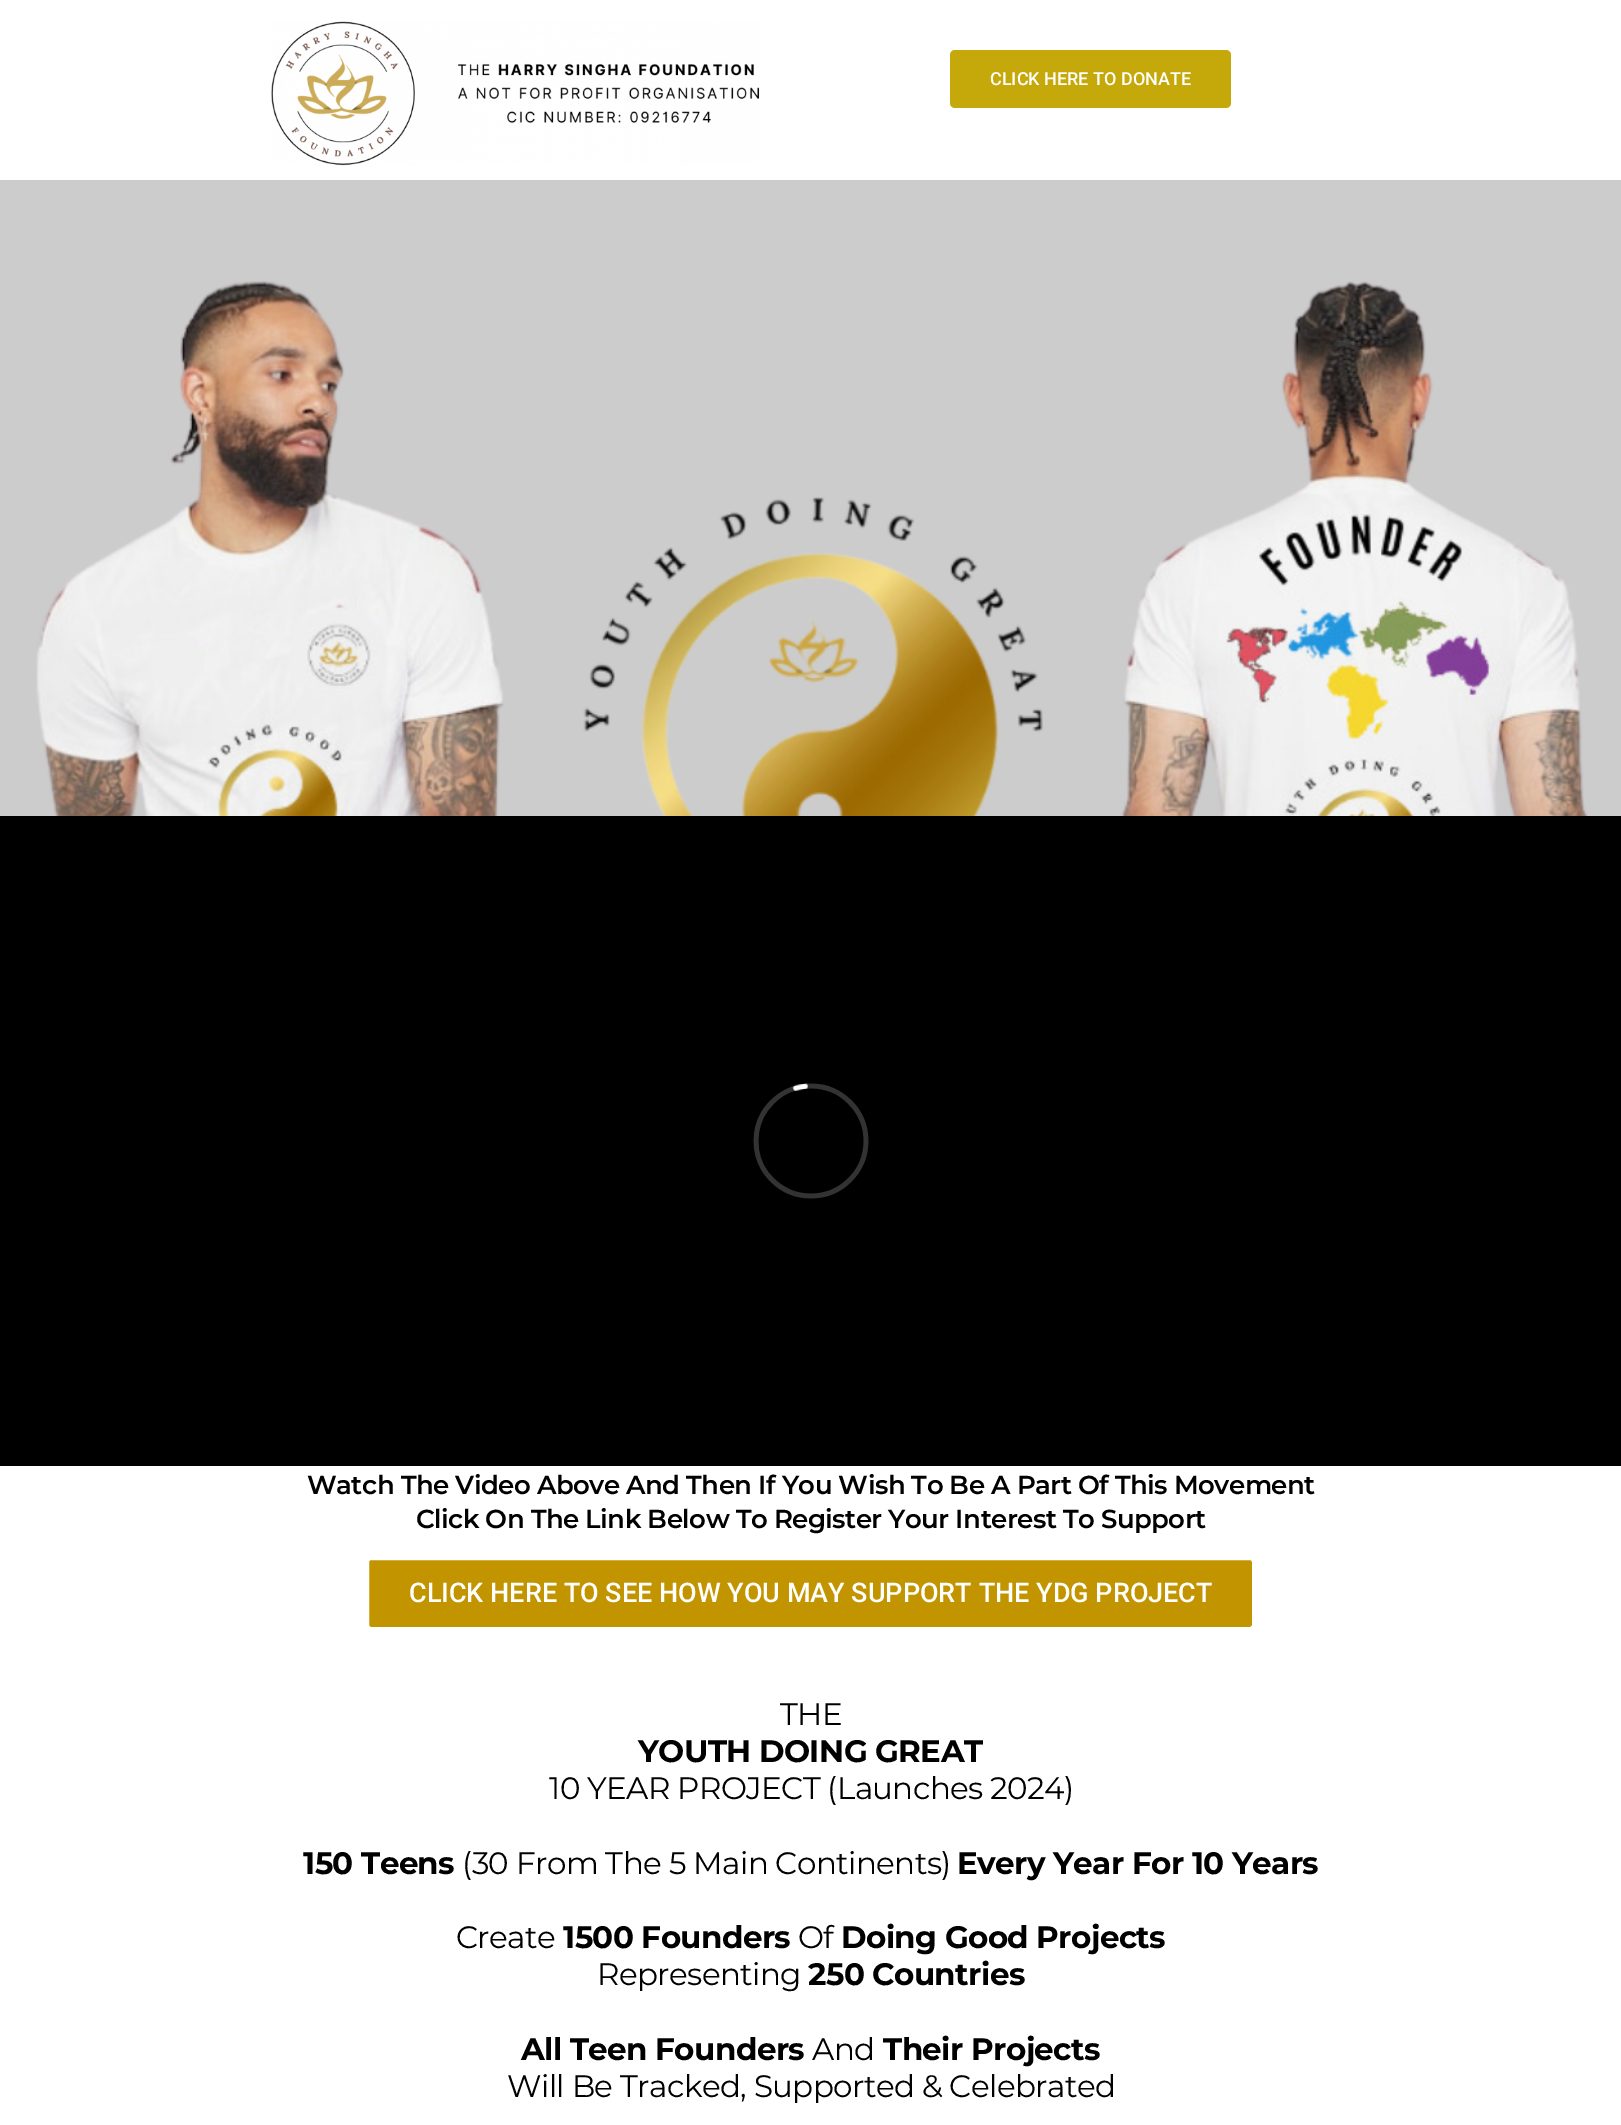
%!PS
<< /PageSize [1621 2125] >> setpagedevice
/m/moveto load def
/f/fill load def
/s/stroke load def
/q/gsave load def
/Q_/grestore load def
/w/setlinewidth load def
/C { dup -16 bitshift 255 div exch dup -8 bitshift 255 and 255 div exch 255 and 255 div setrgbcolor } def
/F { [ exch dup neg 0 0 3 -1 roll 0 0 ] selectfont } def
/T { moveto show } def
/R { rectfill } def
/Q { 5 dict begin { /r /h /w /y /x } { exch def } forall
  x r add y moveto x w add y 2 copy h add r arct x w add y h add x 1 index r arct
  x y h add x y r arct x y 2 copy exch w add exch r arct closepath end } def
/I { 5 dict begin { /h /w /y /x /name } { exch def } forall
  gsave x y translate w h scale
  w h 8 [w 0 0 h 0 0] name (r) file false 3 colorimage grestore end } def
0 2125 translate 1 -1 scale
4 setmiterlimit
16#FFFFFF C
0 0 1621 2125 R
(1.rgb) 271 21 489 145 I
16#C5A90B C
950 50 281 58 5 Q f
/Roboto-Medium 18 F
16#FFFFFF C
(CLICK HERE TO DONATE) 990 85 T
16#CCCCCC C
0 180 1621 636 R
(2.rgb) 36 281 1552 535 I
16#000000 C
0 816 1621 650 R
(3.rgb) 753 1083 116 116 I
/Montserrat-SemiBold 26 F
307 1494 m -.52 0 (Watch The Video Above And Then If You Wish To Be A Part Of This Movement) ashow
416 1528 m -.52 0 (Click On The Link Below To Register Your Interest To Support) ashow
16#C29500 C
367.5 1558.5 886 70 3.5 Q q f Q_
16#FFFFFF C
3 w
s
/Roboto-Medium 27 F
(CLICK HERE TO SEE HOW YOU MAY SUPPORT THE YDG PROJECT) 409 1602 T
/Montserrat-Regular 31 F
16#000000 C
780 1725 m -.6 0 (THE) ashow
/Montserrat-Bold 31 F
638 1762 m -.6 0 (YOUTH DOING GREAT) ashow
/Montserrat-Regular 31 F
549 1799 m -.6 0 (10 YEAR PROJECT \(Launches 2024\)) ashow
/Montserrat-Bold 31 F
303 1874 m -.6 0 (150 Teens) ashow
/Montserrat-Regular 31 F
462 1874 m -.6 0 (\(30 From The 5 Main Continents\)) ashow
/Montserrat-Bold 31 F
957 1874 m -.6 0 (Every Year For 10 Years) ashow
/Montserrat-Regular 31 F
456 1948 m -.6 0 (Create) ashow
/Montserrat-Bold 31 F
563 1948 m -.6 0 (1500 Founders) ashow
/Montserrat-Regular 31 F
798 1948 m -.6 0 (Of) ashow
/Montserrat-Bold 31 F
841 1948 m -.6 0 (Doing Good Projects) ashow
/Montserrat-Regular 31 F
597 1985 m -.6 0 (Representing) ashow
/Montserrat-Bold 31 F
808 1985 m -.6 0 (250 Countries) ashow
521 2060 m -.6 0 (All Teen Founders) ashow
/Montserrat-Regular 31 F
812 2060 m -.6 0 (And) ashow
/Montserrat-Bold 31 F
883 2060 m -.6 0 (Their Projects) ashow
/Montserrat-Regular 31 F
507 2097 m -.6 0 (Will Be Tracked, Supported & Celebrated) ashow
showpage
